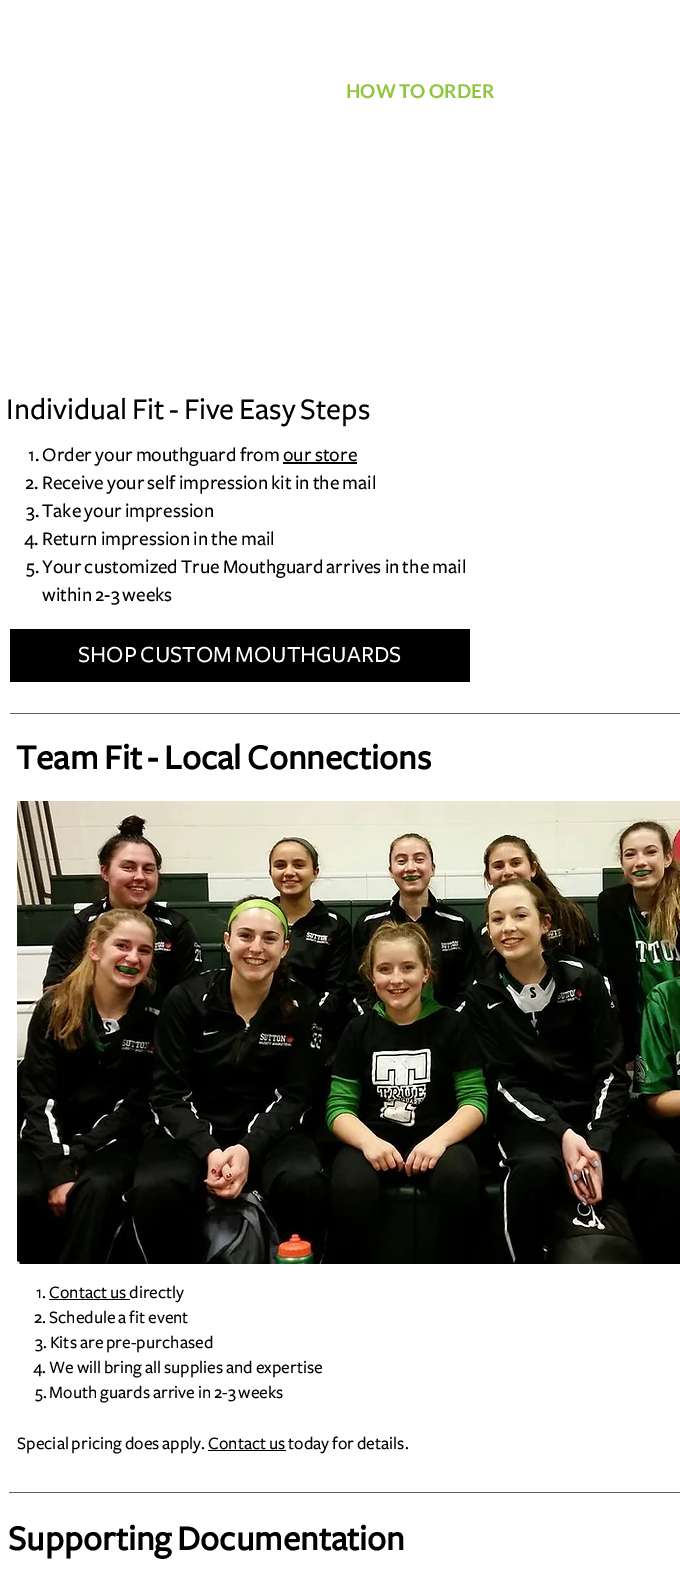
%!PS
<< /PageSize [680 1589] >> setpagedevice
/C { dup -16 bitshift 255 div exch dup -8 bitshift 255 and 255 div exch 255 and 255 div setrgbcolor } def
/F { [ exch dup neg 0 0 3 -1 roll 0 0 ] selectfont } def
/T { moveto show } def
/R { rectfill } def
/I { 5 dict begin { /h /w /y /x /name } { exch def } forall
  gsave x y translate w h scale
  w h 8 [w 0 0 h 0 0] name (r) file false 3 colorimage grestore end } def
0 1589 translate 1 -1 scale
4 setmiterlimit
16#FFFFFF C
0 0 680 1589 R
/Lato-Bold 19 F
16#91C540 C
(HOW TO ORDER) 346 98 T
/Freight-Medium 31 F
16#000000 C
(Individual Fit - Five Easy Steps) 6 419 T
/Freight-Medium 20 F
(1. Order your mouthguard from our store) 28 461 T
283 462 74 2 R
(2. Receive your self impression kit in the mail) 25 489 T
(3. Take your impression) 26 517 T
(4. Return impression in the mail) 24 545 T
(5. Your customized True Mouthguard arrives in the mail) 26 573 T
(within 2-3 weeks) 42 601 T
10 629 460 53 R
/Freight-Medium 24 F
16#FFFFFF C
(SHOP CUSTOM MOUTHGUARDS) 78 662 T
16#606060 C
10 713 670 1 R
/Freight-Bold 36 F
16#000000 C
(Team Fit - Local Connections) 16 769 T
(1.rgb) 17 801 663 463 I
/Freight-Medium 18 F
(1. Contact us directly) 36 1298 T
49 1299 81 1 R
(2. Schedule a fit event) 34 1323 T
(3. Kits are pre-purchased) 35 1348 T
(4. We will bring all supplies and expertise) 33 1373 T
(5. Mouth guards arrive in 2-3 weeks) 35 1398 T
(Special pricing does apply. Contact us today for details.) 17 1449 T
208 1450 78 1 R
16#606060 C
9 1492 671 1 R
/Freight-Bold 36 F
16#000000 C
(Supporting Documentation) 8 1550 T
showpage
